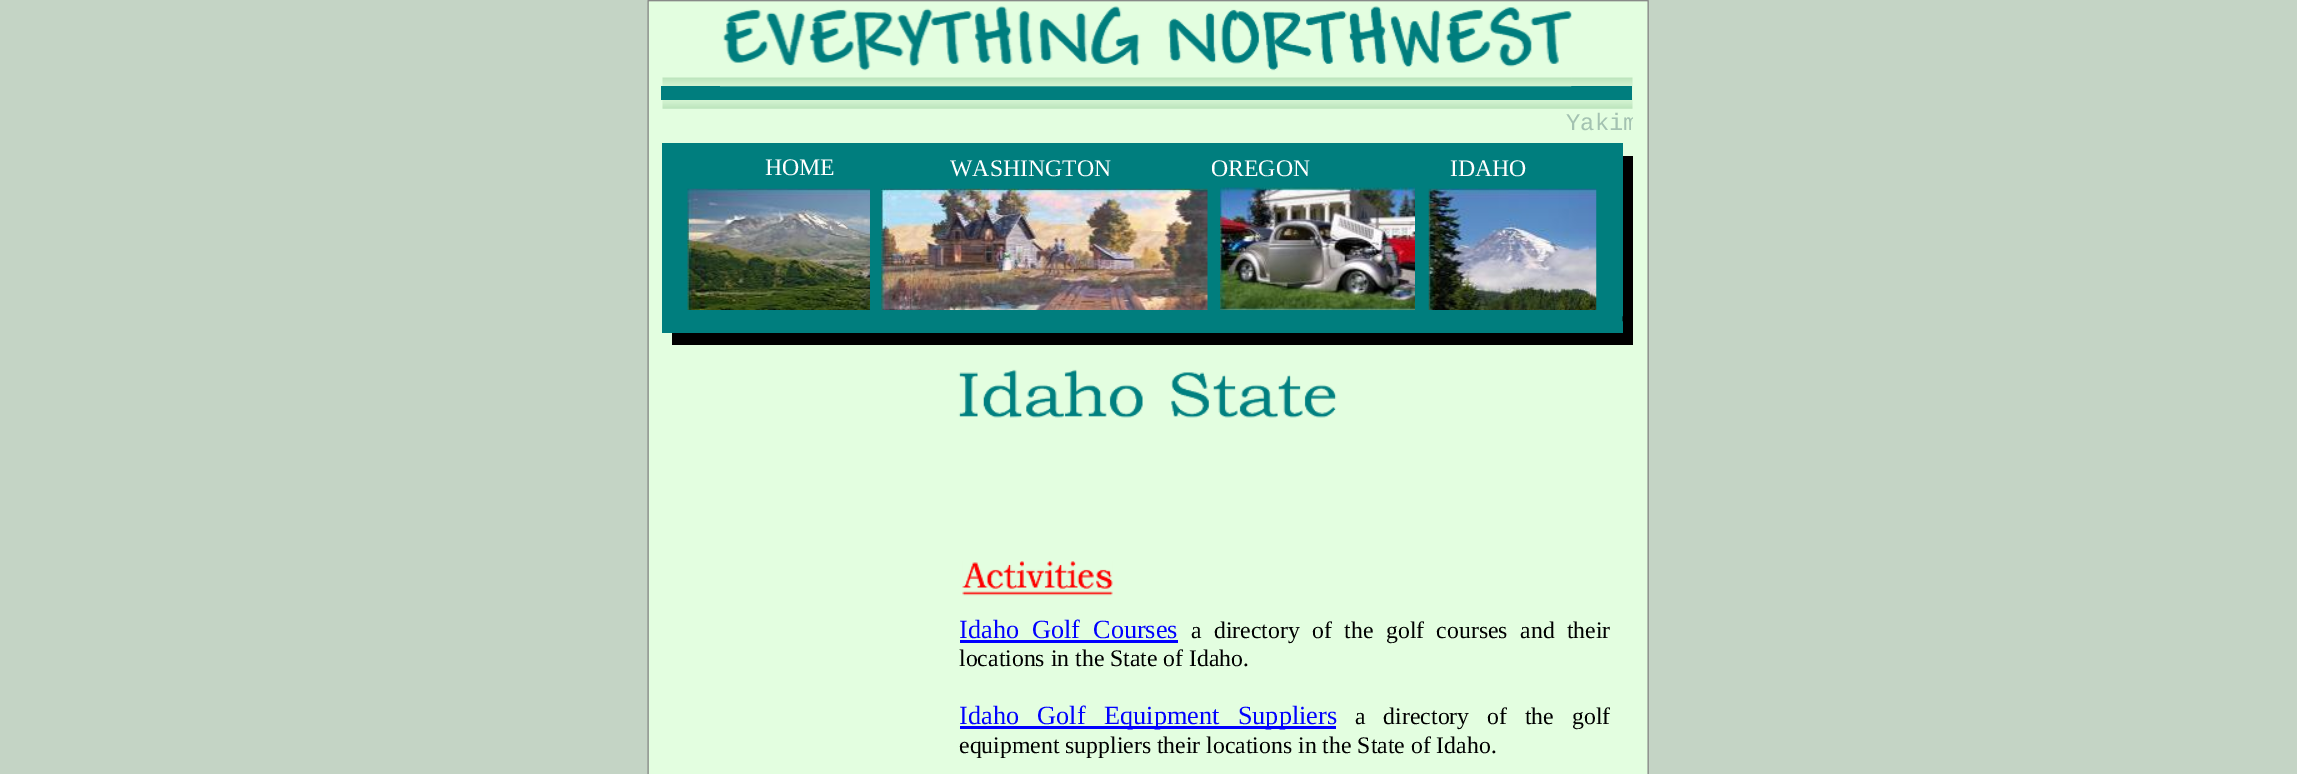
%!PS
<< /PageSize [2297 774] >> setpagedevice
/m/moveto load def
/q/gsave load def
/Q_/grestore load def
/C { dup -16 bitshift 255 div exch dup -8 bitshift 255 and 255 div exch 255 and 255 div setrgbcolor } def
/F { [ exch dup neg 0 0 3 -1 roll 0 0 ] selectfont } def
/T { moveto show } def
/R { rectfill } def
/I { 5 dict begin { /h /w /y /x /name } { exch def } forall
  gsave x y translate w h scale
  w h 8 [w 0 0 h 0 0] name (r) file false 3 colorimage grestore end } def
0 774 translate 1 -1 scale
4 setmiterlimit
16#C4D4C5 C
0 0 2297 774 R
(1.rgb) 647 0 1002 774 I
(3.rgb) 662 77 971 32 I
16#007E7E C
661 86 971 14 R
(2.rgb) 720 6 852 81 I
q
660 110 973 28 rectclip
/LiberationMono-Regular 23.75 F
16#A3C2B1 C
(Yakim) 1566 130 T
Q_
16#000000 C
672 156 961 189 R
16#007E7E C
662 143 961 190 R
/LiberationSerif-Regular 23.75 F
16#FFFFFF C
(HOME) 765 175 T
(WASHINGTON) 950 176 T
(OREGON) 1211 176 T
(IDAHO) 1450 176 T
(4.rgb) 687 188 183 122 I
(5.rgb) 881 188 327 122 I
(6.rgb) 1220 187 195 123 I
(7.rgb) 1428 188 169 122 I
(8.rgb) 1622 316 1 6 I
(9.rgb) 958 369 379 49 I
(10.rgb) 962 561 151 35 I
/LiberationSerif-Regular 26.25 F
16#0000FF C
959 638 m 6.5 0 32 (Idaho Golf Courses) widthshow
960 640 218 3 R
/LiberationSerif-Regular 23.75 F
16#000000 C
1191 638 m 6.5 0 32 (a directory of the golf courses and their) widthshow
(locations in the State of Idaho.) 959 666 T
16#0000FF C
960 726 376 3 R
/LiberationSerif-Regular 26.25 F
959 724 m 12 0 32 (Idaho Golf Equipment Suppliers) widthshow
/LiberationSerif-Regular 23.75 F
16#000000 C
1355 724 m 12 0 32 (a directory of the golf) widthshow
(equipment suppliers their locations in the State of Idaho.) 959 753 T
showpage
